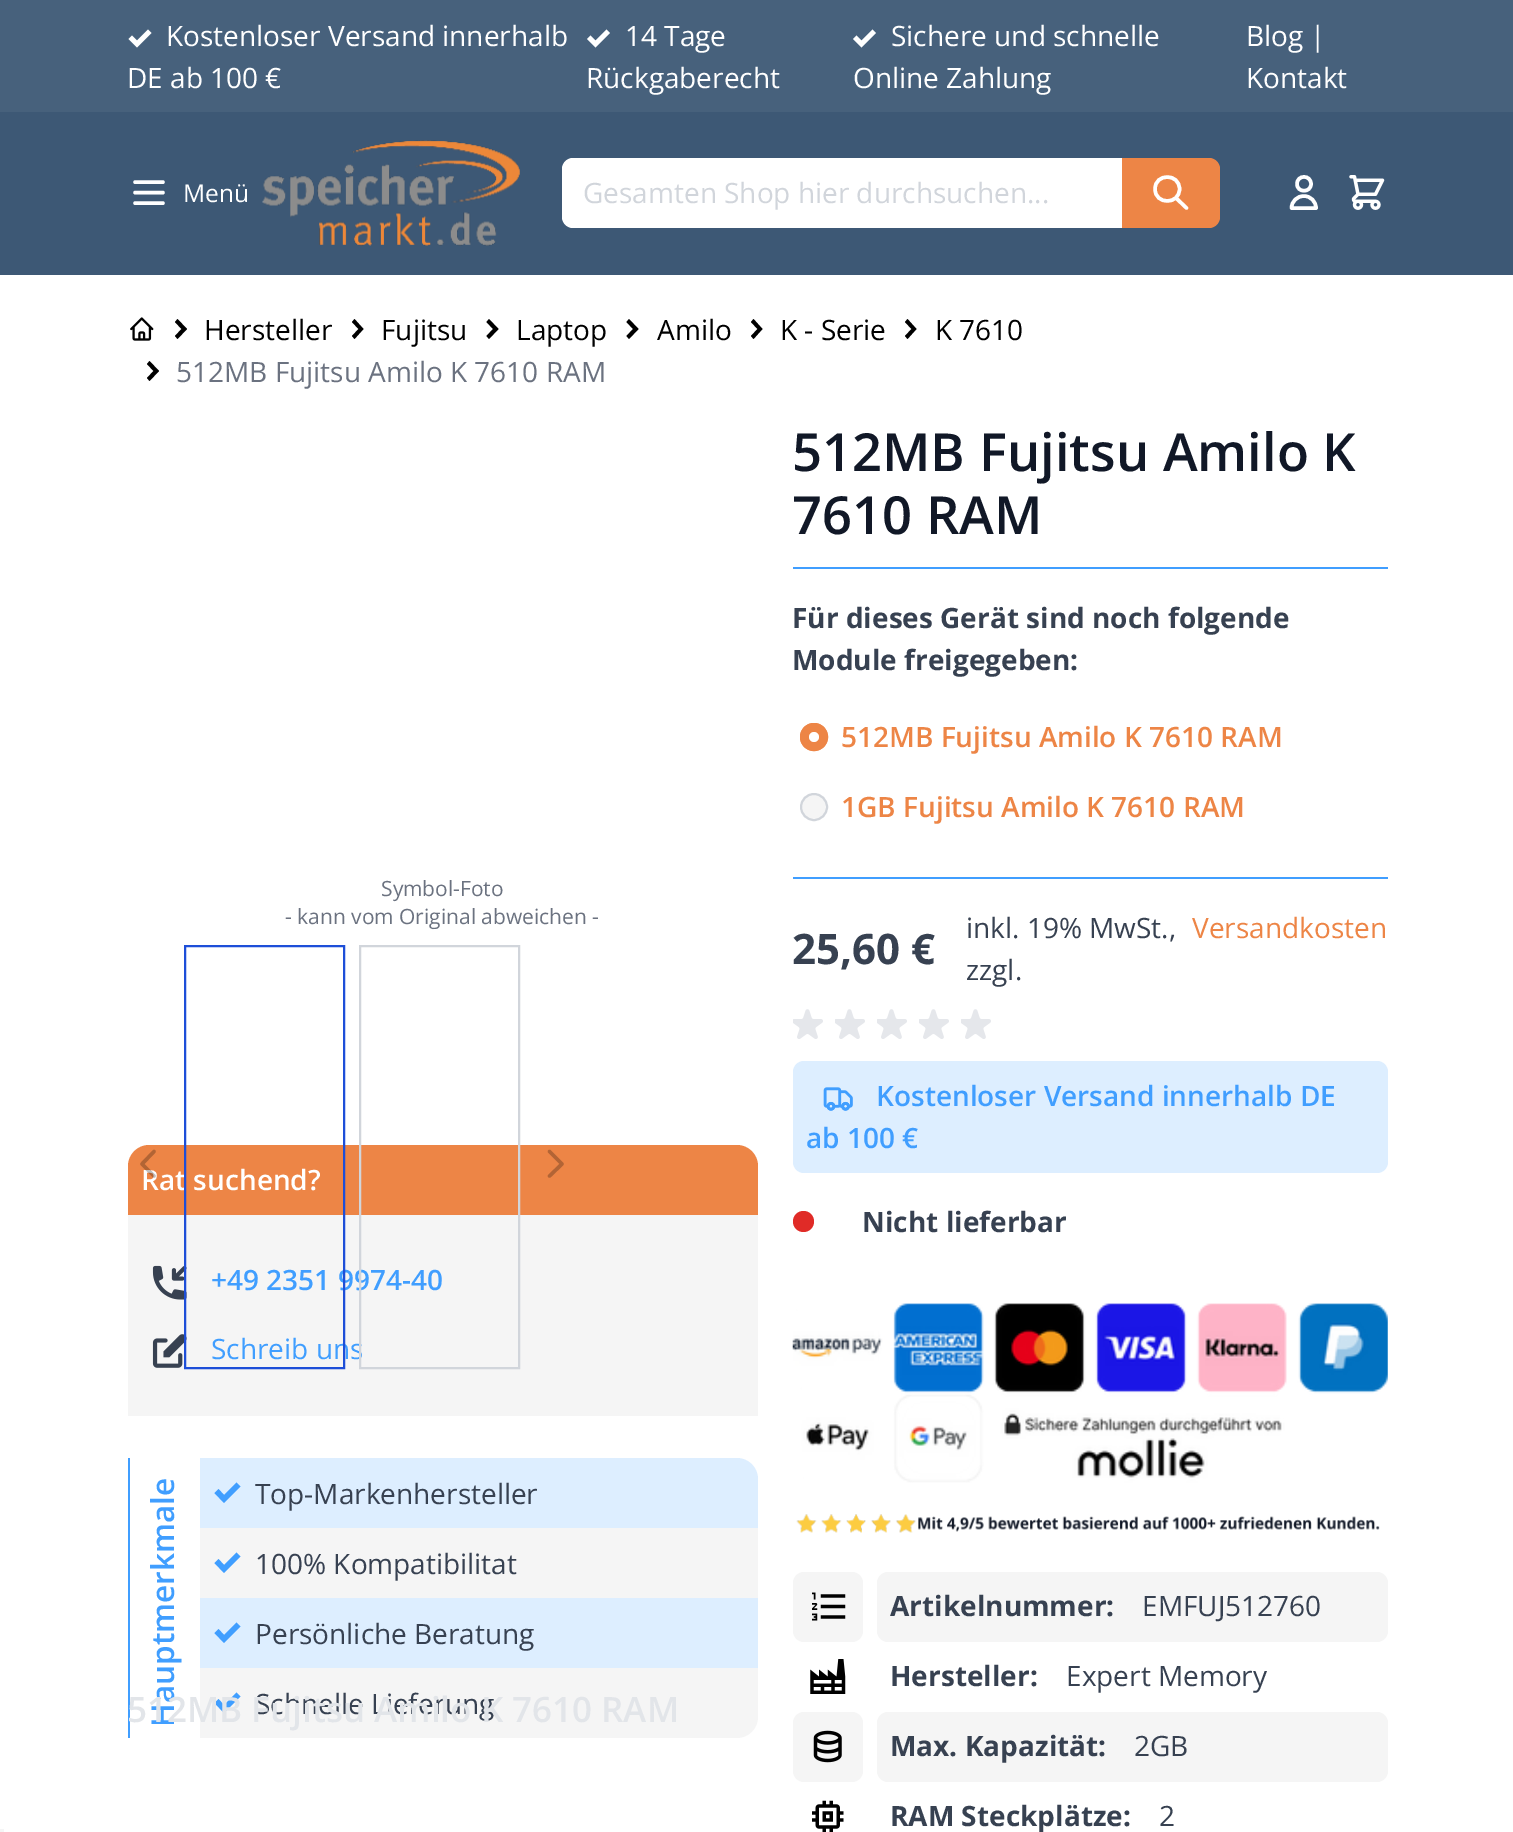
%!PS
<< /PageSize [1513 1832] /PageUsesTransparency true >> setpagedevice
/m/moveto load def
/l/rlineto load def
/c/rcurveto load def
/z/closepath load def
/f/fill load def
/s/stroke load def
/q/gsave load def
/Q_/grestore load def
/w/setlinewidth load def
/C { dup -16 bitshift 255 div exch dup -8 bitshift 255 and 255 div exch 255 and 255 div setrgbcolor } def
/F { [ exch dup neg 0 0 3 -1 roll 0 0 ] selectfont } def
/T { moveto show } def
/R { rectfill } def
/A { dup .setfillconstantalpha .setstrokeconstantalpha } def
/O { newpath 0 360 arc closepath } def
/Q { 5 dict begin { /r /h /w /y /x } { exch def } forall
  x r add y moveto x w add y 2 copy h add r arct x w add y h add x 1 index r arct
  x y h add x y r arct x y 2 copy exch w add exch r arct closepath end } def
/I { 5 dict begin { /h /w /y /x /name } { exch def } forall
  gsave x y translate w h scale
  w h 8 [w 0 0 h 0 0] name (r) file false 3 colorimage grestore end } def
0 .pushpdf14devicefilter
0 1832 translate 1 -1 scale
4 setmiterlimit
16#FFFFFF C
0 0 1513 1832 R
16#F5F5F5 C
0 1829 4 3 R
16#3D5875 C
0 112 1513 163 R
16#47617C C
0 0 1513 112 R
16#FFFFFF C
148 29.5 m 3.5 3.5 l -14.5 14.5 l -8.5 -8.5 l 3.5 -3.5 l 5 5 l z f
/OpenSans-Regular 28 F
(Kostenloser Versand innerhalb) 166 46 T
(DE ab 100 €) 127 88 T
606.5 29.5 m 3.5 3.5 l -14.5 14.5 l -8.5 -8.5 l 3.5 -3.5 l 5 5 l z f
(14 Tage) 625 46 T
(Rückgaberecht) 586 88 T
872.5 29.5 m 3.5 3.5 l -14.5 14.5 l -8.5 -8.5 l 3.5 -3.5 l 5 5 l z f
(Sichere und schnelle) 891 46 T
(Online Zahlung) 853 88 T
(Blog |) 1246 46 T
(Kontakt) 1246 88 T
3.5 w
1 setlinecap
1 setlinejoin
135 182 m 28 0 l 135 192.5 m 28 0 l 135 203 m 28 0 l s
/OpenSans-Regular 24.5 F
(Menü) 183 202 T
(1.rgb) 262 140 258 106 I
573 158 m 549 0 l 0 70 l -549 0 l -6 0 -11 -5 -11 -11 c 0 -48 l 0 -6 5 -11 11 -11 c z f
/OpenSans-Regular 28 F
16#D1D5DB C
(Gesamten Shop hier durchsuchen...) 583 203 T
16#ED8546 C
1122 158 m 87 0 l 6 0 11 5 11 11 c 0 48 l 0 6 -5 11 -11 11 c -87 0 l z f
16#FFFFFF C
1186.5 208 m -10.5 -10 l 1179.5 189 m 0 16 -24.5 16 -24.5 0 c 0 -16 24.5 -16 24.5 0 c z s
1311 184 m 0 9 -14 9 -14 0 c 0 -9.5 14 -9.5 14 0 c z 1304 196 m -7 0 -12.5 5.5 -12.5 12 c 24.5 0 l 0 -6.5 -5.5 -12 -12 -12 c z s
(2.rgb) 1349 175 36 35 I
(3.rgb) 130 317 24 24 I
16#000000 C
177.5 319 m 9.5 10 l -9.5 10 l -2.5 -3 l 6.5 -7 l -6.5 -7 l z f
(Hersteller) 204 340 T
354.5 319 m 9 10 l -9 10 l -2.5 -3 l 6.5 -7 l -6.5 -7 l z f
(Fujitsu) 381 340 T
489 319 m 9.5 10 l -9.5 10 l -2.5 -3 l 6.5 -7 l -6.5 -7 l z f
(Laptop) 516 340 T
629 319 m 9.5 10 l -9.5 10 l -2.5 -3 l 6.5 -7 l -6.5 -7 l z f
(Amilo) 657 340 T
753.5 319 m 9 10 l -9 10 l -2.5 -3 l 6.5 -7 l -6.5 -7 l z f
(K - Serie) 780 340 T
907.5 319 m 9 10 l -9 10 l -2.5 -3 l 6.5 -7 l -6.5 -7 l z f
(K 7610) 935 340 T
149.5 361 m 9.5 10 l -9.5 10 l -2.5 -3 l 6.5 -7 l -6.5 -7 l z f
16#6B7280 C
(512MB Fujitsu Amilo K 7610 RAM) 176 382 T
/OpenSans-Regular 21 F
(Symbol-Foto) 381 896 T
(- kann vom Original abweichen -) 285 924 T
16#ED8546 C
149 1145 m 588 0 l 11.5 0 21 9.5 21 21 c 0 49 l -630 0 l 0 -49 l 0 -11.5 9.5 -21 21 -21 c z f
/OpenSans-SemiBold 28 F
16#FFFFFF C
(Rat suchend?) 141 1190 T
0.25 A
16#000000 C
154 1176 m -12 -12 l 12 -12.5 l s
1 A
16#F5F5F5 C
128 1215 630 201 R
(4.rgb) 152 1265 35 35 I
16#409EFF C
(+49 2351 9974-40) 211 1290 T
(5.rgb) 152 1334 35 34 I
/OpenSans-Regular 28 F
(Schreib uns) 211 1359 T
16#1D4ED8 C
2 w
0 setlinecap
0 setlinejoin
185 946 159 422 rectstroke
16#D1D5DB C
360 946 159 422 rectstroke
16#B26435 C
3.5 w
1 setlinecap
1 setlinejoin
549.5 1151.5 m 12.5 12.5 l -12.5 12 l s
16#409EFF C
128 1458 2 280 R
/OpenSans-SemiBold 31.5 F
q 174 1727 translate -90 rotate 0 0 m (Hauptmerkmale) show Q_
16#DDEEFF C
200 1458 m 537 0 l 11.5 0 21 9.5 21 21 c 0 49 l -558 0 l z f
16#409EFF C
236.5 1482.5 m 4 4 l -16.5 16.5 l -9.5 -10 l 4 -4 l 5.5 6 l z f
/OpenSans-Regular 28 F
16#374151 C
(Top-Markenhersteller) 255 1504 T
16#F5F5F5 C
200 1528 558 70 R
16#409EFF C
236.5 1552.5 m 4 4 l -16.5 16.5 l -9.5 -10 l 4 -4 l 5.5 6 l z f
16#374151 C
(100% Kompatibilitat) 255 1574 T
16#DDEEFF C
200 1598 558 70 R
16#409EFF C
236.5 1622.5 m 4 4 l -16.5 16.5 l -9.5 -10 l 4 -4 l 5.5 6 l z f
16#374151 C
(Persönliche Beratung) 255 1644 T
16#F5F5F5 C
200 1668 m 558 0 l 0 49 l 0 11.5 -9.5 21 -21 21 c -537 0 l z f
16#409EFF C
236.5 1692.5 m 4 4 l -16.5 16.5 l -9.5 -10 l 4 -4 l 5.5 6 l z f
16#374151 C
(Schnelle Lieferung) 255 1714 T
/OpenSans-SemiBold 52.5 F
16#111827 C
(512MB Fujitsu Amilo K) 792 471 T
(7610 RAM) 792 534 T
16#409EFF C
793 567 595 2 R
793 877 595 2 R
/OpenSans-Bold 28 F
16#374151 C
(Für dieses Gerät sind noch folgende) 792 628 T
(Module freigegeben:) 792 670 T
16#ED8546 C
814 737 14 O f
16#FFFFFF C
814 737 5 O f
16#ED8546 C
2 w
0 setlinecap
0 setlinejoin
814 737 13 O s
/OpenSans-SemiBold 28 F
(512MB Fujitsu Amilo K 7610 RAM) 841 747 T
16#F5F5F5 C
814 807 13 O q f Q_
16#D1D5DB C
s
16#ED8546 C
(1GB Fujitsu Amilo K 7610 RAM) 841 817 T
/OpenSans-Bold 42 F
16#374151 C
(25,60 €) 792 964 T
/OpenSans-Regular 28 F
(inkl. 19% MwSt.,) 966 938 T
(zzgl.) 966 980 T
16#ED8546 C
(Versandkosten) 1192 938 T
(6.rgb) 793 1009 30 30 I
(6.rgb) 835 1009 30 30 I
(6.rgb) 877 1009 30 30 I
(6.rgb) 919 1009 30 30 I
(6.rgb) 961 1009 30 30 I
16#DDEEFF C
793 1061 595 112 11 Q f
(7.rgb) 823 1087 30 24 I
/OpenSans-SemiBold 28 F
16#409EFF C
(Kostenloser Versand innerhalb DE) 876 1106 T
(ab 100 €) 806 1148 T
16#E02B27 C
803.5 1221.5 10.5 O f
/OpenSans-Bold 28 F
16#374151 C
(Nicht lieferbar) 862 1232 T
(8.rgb) 792 1303 596 180 I
(9.rgb) 796 1514 584 19 I
16#F5F5F5 C
793 1572 70 70 11 Q f
(10.rgb) 812 1592 34 29 I
888 1572 m 241 0 l 0 70 l -241 0 l -6 0 -11 -5 -11 -11 c 0 -48 l 0 -6 5 -11 11 -11 c z f
16#374151 C
(Artikelnummer:) 890 1616 T
16#F5F5F5 C
1129 1572 m 248 0 l 6 0 11 5 11 11 c 0 48 l 0 6 -5 11 -11 11 c -248 0 l z f
/OpenSans-Regular 28 F
16#374151 C
(EMFUJ512760) 1142 1616 T
(11.rgb) 810 1659 36 35 I
/OpenSans-Bold 28 F
(Hersteller:) 890 1686 T
/OpenSans-Regular 28 F
(Expert Memory) 1066 1686 T
16#F5F5F5 C
793 1712 70 70 11 Q f
(12.rgb) 813 1730 29 33 I
888 1712 m 232 0 l 0 70 l -232 0 l -6 0 -11 -5 -11 -11 c 0 -48 l 0 -6 5 -11 11 -11 c z f
/OpenSans-Bold 28 F
16#374151 C
(Max. Kapazität:) 890 1756 T
16#F5F5F5 C
1120 1712 m 257 0 l 6 0 11 5 11 11 c 0 48 l 0 6 -5 11 -11 11 c -257 0 l z f
/OpenSans-Regular 28 F
16#374151 C
(2GB) 1134 1756 T
(13.rgb) 812 1800 32 32 I
/OpenSans-Bold 28 F
(RAM Steckplätze:) 890 1826 T
/OpenSans-Regular 28 F
(2) 1159 1826 T
/OpenSans-SemiBold 35 F
16#E2E5E9 C
(512MB Fujitsu Amilo K 7610 RAM) 127 1722 T
.poppdf14devicefilter showpage
